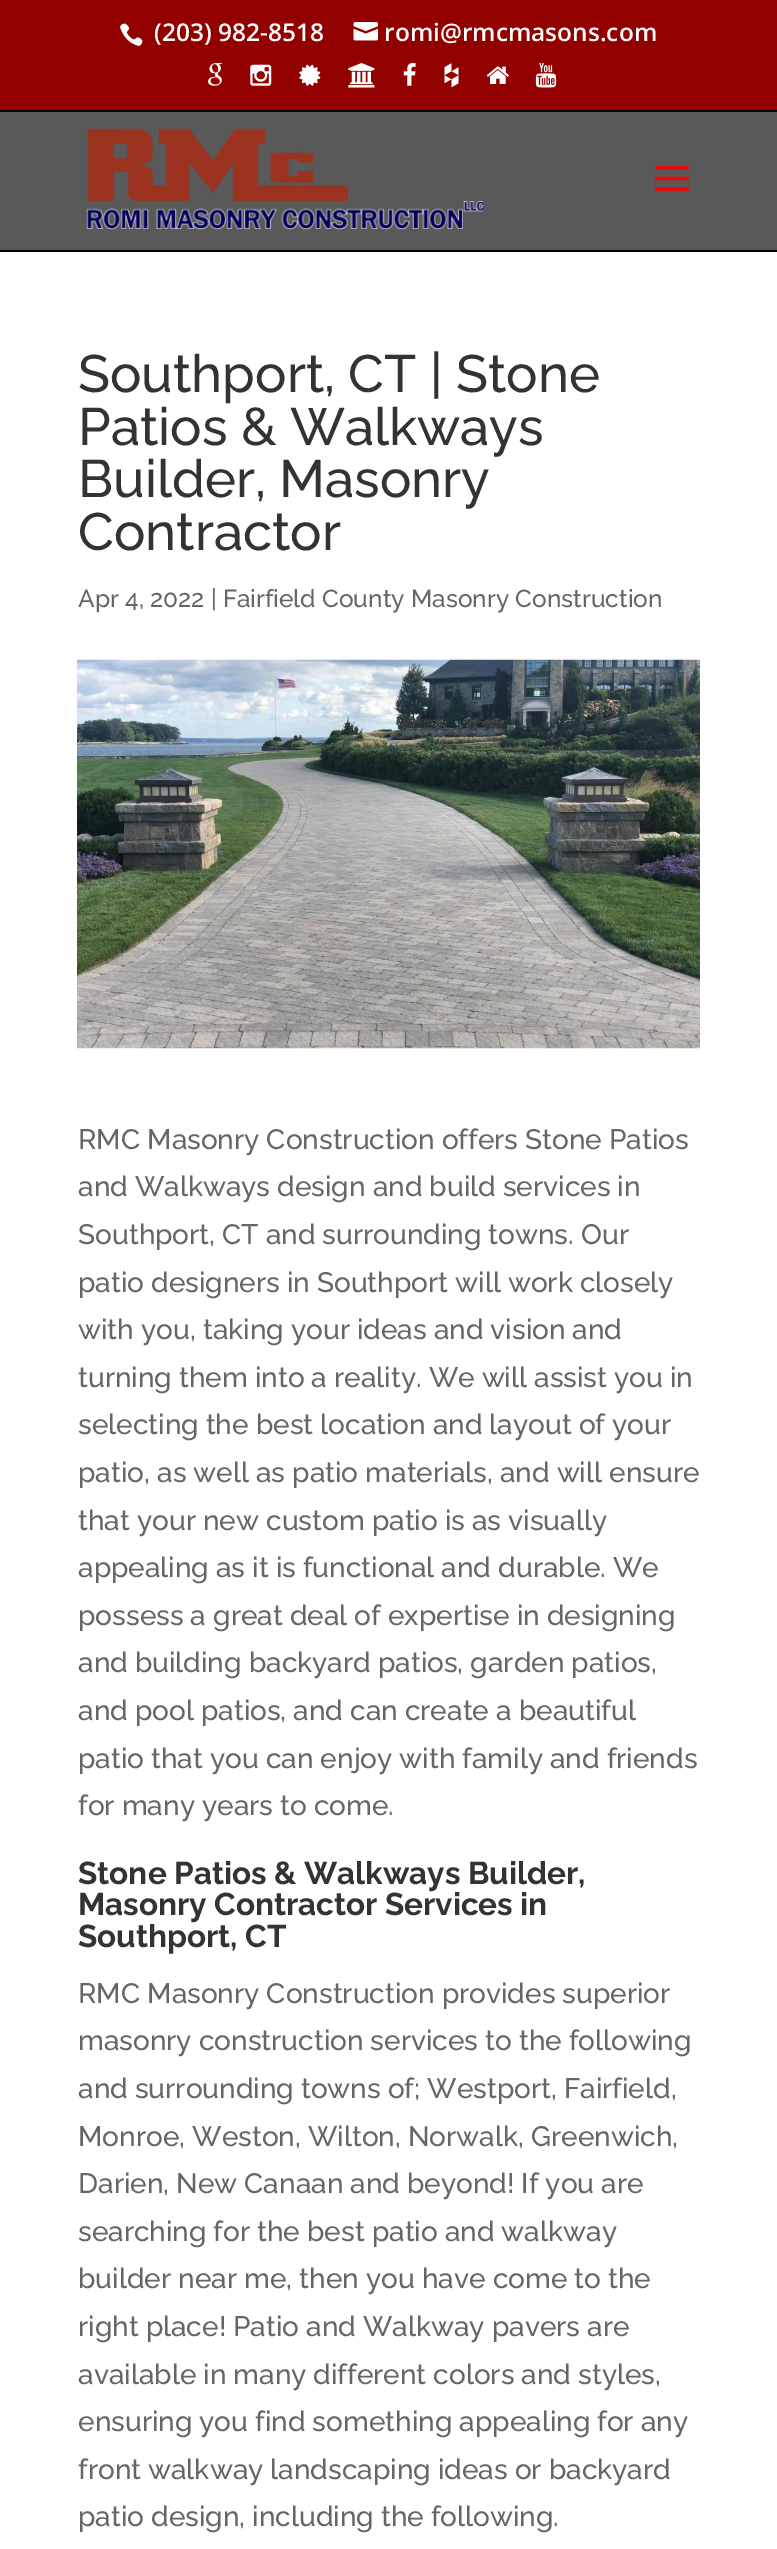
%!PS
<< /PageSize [777 2549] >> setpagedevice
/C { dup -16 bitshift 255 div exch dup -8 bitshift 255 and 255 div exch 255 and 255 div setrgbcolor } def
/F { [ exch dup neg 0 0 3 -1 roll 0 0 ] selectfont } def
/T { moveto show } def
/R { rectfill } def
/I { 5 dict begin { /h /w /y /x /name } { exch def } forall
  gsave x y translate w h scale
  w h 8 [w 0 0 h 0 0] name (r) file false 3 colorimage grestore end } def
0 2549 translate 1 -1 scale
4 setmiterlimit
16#FFFFFF C
0 0 777 2549 R
16#930000 C
0 0 777 110 R
16#000000 C
0 110 777 2 R
(1.rgb) 120 23 23 23 I
/OpenSans-SemiBold 24.5 F
16#FFFFFF C
(\(203\) 982-8518) 154 41 T
(2.rgb) 353 22 25 19 I
(romi@rmcmasons.com) 384 41 T
(3.rgb) 208 63 15 23 I
(4.rgb) 250 64 22 22 I
(5.rgb) 299 64 22 22 I
(6.rgb) 348 63 27 25 I
(7.rgb) 403 63 13 23 I
(8.rgb) 444 63 15 25 I
(9.rgb) 486 66 23 18 I
(10.rgb) 535 63 22 25 I
16#595959 C
0 112 777 138 R
16#000000 C
0 250 777 2 R
(11.rgb) 86 128 397 102 I
(12.rgb) 654 166 36 25 I
/Raleway-Medium 52.5 F
16#333333 C
(Southport, CT | Stone) 78 392 T
(Patios & Walkways) 78 445 T
(Builder, Masonry) 78 497 T
(Contractor) 78 550 T
/Raleway-Medium 24.5 F
16#666666 C
(Apr 4, 2022 | Fairfield County Masonry Construction) 78 607 T
(13.rgb) 77 659 623 390 I
/Raleway-Medium 28 F
(RMC Masonry Construction offers Stone Patios) 78 1149 T
(and Walkways design and build services in) 78 1196 T
(Southport, CT and surrounding towns. Our) 78 1244 T
(patio designers in Southport will work closely) 78 1292 T
(with you, taking your ideas and vision and) 78 1339 T
(turning them into a reality. We will assist you in) 78 1387 T
(selecting the best location and layout of your) 78 1434 T
(patio, as well as patio materials, and will ensure) 78 1482 T
(that your new custom patio is as visually) 78 1530 T
(appealing as it is functional and durable. We) 78 1577 T
(possess a great deal of expertise in designing) 78 1625 T
(and building backyard patios, garden patios,) 78 1672 T
(and pool patios, and can create a beautiful) 78 1720 T
(patio that you can enjoy with family and friends) 78 1768 T
(for many years to come.) 78 1815 T
/Raleway-Bold 31.5 F
16#333333 C
(Stone Patios & Walkways Builder,) 78 1884 T
(Masonry Contractor Services in) 78 1915 T
(Southport, CT) 78 1947 T
/Raleway-Medium 28 F
16#666666 C
(RMC Masonry Construction provides superior) 78 2003 T
(masonry construction services to the following) 78 2050 T
(and surrounding towns of; Westport, Fairfield,) 78 2098 T
(Monroe, Weston, Wilton, Norwalk, Greenwich,) 78 2146 T
(Darien, New Canaan and beyond! If you are) 78 2193 T
(searching for the best patio and walkway) 78 2241 T
(builder near me, then you have come to the) 78 2288 T
(right place! Patio and Walkway pavers are) 78 2336 T
(available in many different colors and styles,) 78 2384 T
(ensuring you find something appealing for any) 78 2431 T
(front walkway landscaping ideas or backyard) 78 2479 T
(patio design, including the following.) 78 2526 T
showpage
